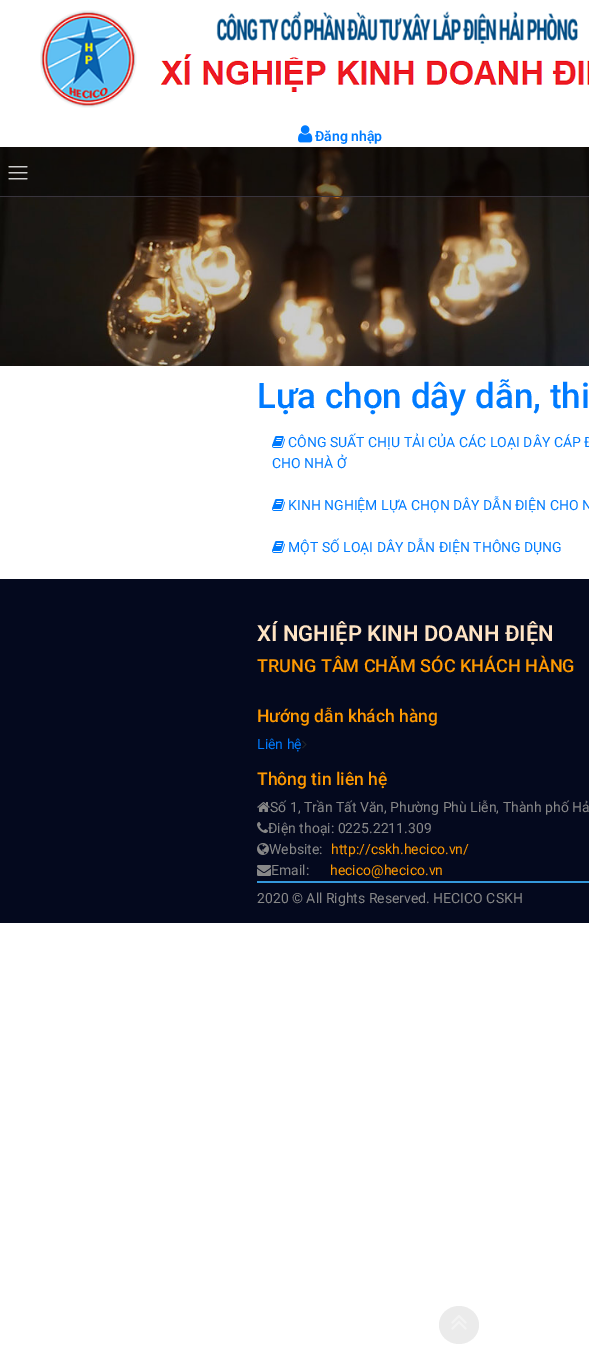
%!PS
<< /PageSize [589 1364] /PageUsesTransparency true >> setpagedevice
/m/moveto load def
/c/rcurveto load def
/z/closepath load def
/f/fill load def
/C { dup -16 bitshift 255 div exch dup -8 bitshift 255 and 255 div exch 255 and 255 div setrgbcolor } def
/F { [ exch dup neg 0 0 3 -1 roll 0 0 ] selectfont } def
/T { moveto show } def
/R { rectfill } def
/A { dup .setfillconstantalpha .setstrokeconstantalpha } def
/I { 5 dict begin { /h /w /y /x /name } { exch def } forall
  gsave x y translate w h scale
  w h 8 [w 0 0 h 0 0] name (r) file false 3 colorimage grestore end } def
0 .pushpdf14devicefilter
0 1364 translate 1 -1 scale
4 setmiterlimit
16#FFFFFF C
0 0 589 1364 R
(1.rgb) 40 10 549 98 I
(2.rgb) 298 125 15 18 I
/Roboto-SemiBold 14 F
16#007BFF C
(Đăng nhập) 315 141 T
(4.rgb) 0 147 589 219 I
0.4 A
16#000000 C
0 147 589 49 R
1 A
16#39353E C
0 196 589 1 R
(3.rgb) 8 166 20 14 I
/Roboto-Medium 35 F
16#007BFF C
(Lựa chọn dây dẫn, thi) 257 408 T
(5.rgb) 272 436 13 12 I
/Roboto-Regular 14 F
(CÔNG SUẤT CHỊU TẢI CỦA CÁC LOẠI DÂY CÁP Đ) 288 447 T
(CHO NHÀ Ở) 272 468 T
(5.rgb) 272 499 13 12 I
(KINH NGHIỆM LỰA CHỌN DÂY DẪN ĐIỆN CHO N) 288 510 T
(5.rgb) 272 541 13 12 I
(MỘT SỐ LOẠI DÂY DẪN ĐIỆN THÔNG DỤNG) 288 552 T
16#EBEBEB C
459 1306 m 11 0 20 8.5 20 19 c 0 10.5 -9 19 -20 19 c -11 0 -20 -8.5 -20 -19 c 0 -10.5 9 -19 20 -19 c z f
(6.rgb) 451 1315 16 15 I
16#04091E C
0 579 589 344 R
/Roboto-SemiBold 22 F
16#FFE4C4 C
(XÍ NGHIỆP KINH DOANH ĐIỆN) 257 641 T
/Roboto-Medium 18 F
16#FF9900 C
(TRUNG TÂM CHĂM SÓC KHÁCH HÀNG) 257 672 T
/Roboto-Medium 17.5 F
(Hướng dẫn khách hàng) 257 722 T
/Roboto-Regular 14 F
16#007BFF C
(Liên hệ) 257 749 T
(7.rgb) 302 740 5 9 I
/Roboto-Medium 17.5 F
16#FF9900 C
(Thông tin liên hệ) 257 785 T
16#3498DB C
257 881 332 2 R
(8.rgb) 257 802 13 10 I
/Roboto-Regular 14 F
16#888888 C
(Số 1, Trần Tất Văn, Phường Phù Liễn, Thành phố Hả) 270 812 T
(9.rgb) 257 822 11 11 I
(Điện thoại: 0225.2211.309) 268 833 T
(10.rgb) 257 843 12 12 I
(Website:) 269 854 T
16#FF9900 C
(http://cskh.hecico.vn/) 331 854 T
(11.rgb) 257 865 14 11 I
16#888888 C
(Email:) 271 875 T
16#FF9900 C
(hecico@hecico.vn) 330 875 T
16#888888 C
(2020 © All Rights Reserved. HECICO CSKH) 257 903 T
.poppdf14devicefilter showpage
